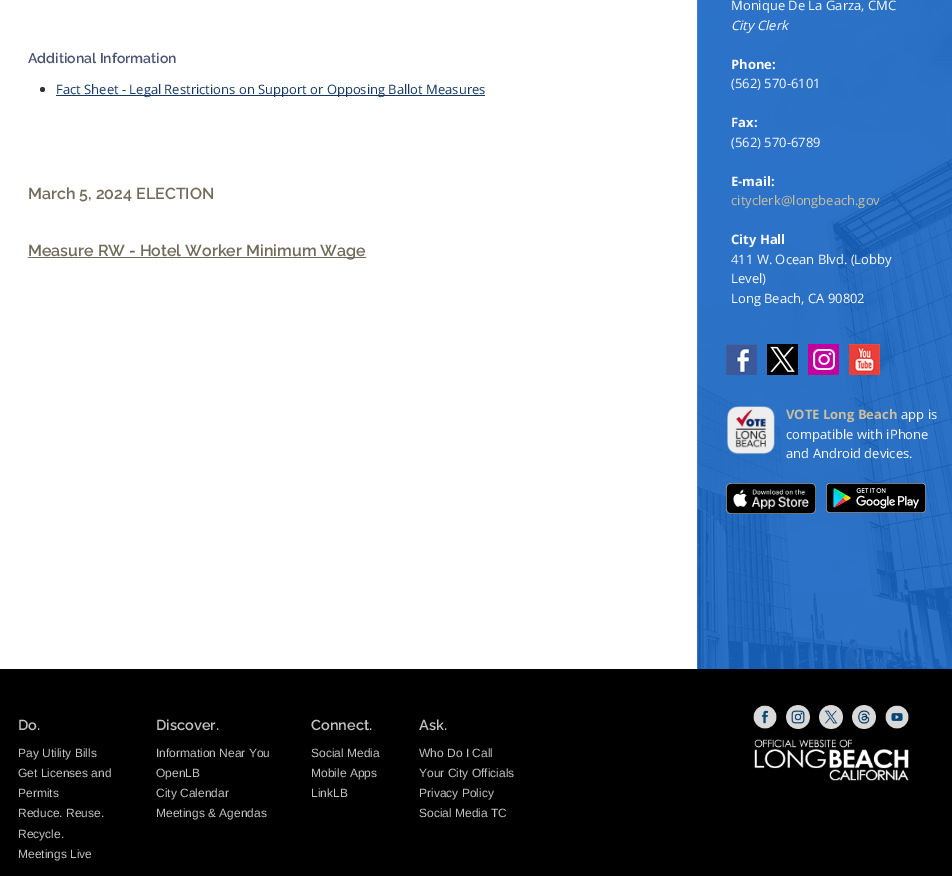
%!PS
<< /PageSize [952 876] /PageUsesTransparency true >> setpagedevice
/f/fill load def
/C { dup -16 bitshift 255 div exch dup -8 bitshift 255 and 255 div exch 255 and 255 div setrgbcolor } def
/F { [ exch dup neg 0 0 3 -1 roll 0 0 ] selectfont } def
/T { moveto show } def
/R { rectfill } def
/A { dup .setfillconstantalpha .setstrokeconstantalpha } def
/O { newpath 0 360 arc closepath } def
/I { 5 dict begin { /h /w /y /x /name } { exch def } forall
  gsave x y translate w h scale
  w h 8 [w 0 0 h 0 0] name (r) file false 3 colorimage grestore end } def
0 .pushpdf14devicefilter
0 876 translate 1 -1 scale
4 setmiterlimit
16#FFFFFF C
0 0 952 876 R
(1.rgb) 697 0 255 669 I
/Raleway-SemiBold 14 F
16#4A5373 C
(Additional Information) 28 63 T
16#333333 C
42.5 89.5 2.5 O f
16#153863 C
56 95 429 1 R
/OpenSans-Regular 13 F
(Fact Sheet - Legal Restrictions on Support or Opposing Ballot Measures) 56 94 T
/Raleway-SemiBold 16 F
16#726B5B C
(March 5, 2024 ELECTION) 28 199 T
28 257 338 1 R
(Measure RW - Hotel Worker Minimum Wage) 28 256 T
0.9 A
16#1564C4 C
697 0 255 669 R
0.2 A
16#B5BDC1 C
697 0 1 669 R
/OpenSans-Regular 13 F
1 A
16#FAFAFA C
(Monique De La Garza, CMC) 731 10 T
/OpenSans-Italic 13 F
(City Clerk) 731 30 T
/OpenSans-Bold 13 F
(Phone:) 731 69 T
/OpenSans-Regular 13 F
(\(562\) 570-6101) 731 88 T
/OpenSans-Bold 13 F
(Fax:) 731 127 T
/OpenSans-Regular 13 F
(\(562\) 570-6789) 731 147 T
/OpenSans-Bold 13 F
(E-mail:) 731 186 T
/OpenSans-Regular 13 F
16#CABE9E C
(cityclerk@longbeach.gov) 731 205 T
/OpenSans-Bold 13 F
16#FAFAFA C
(City Hall) 731 244 T
/OpenSans-Regular 13 F
(411 W. Ocean Blvd. \(Lobby) 731 264 T
(Level\)) 731 283 T
(Long Beach, CA 90802) 731 303 T
(2.rgb) 726 344 31 31 I
(3.rgb) 767 344 31 31 I
(4.rgb) 808 344 31 31 I
(5.rgb) 849 344 31 31 I
(6.rgb) 726 406 49 49 I
/OpenSans-Bold 13 F
16#CABE9E C
(VOTE Long Beach) 786 419 T
/OpenSans-Regular 13 F
16#FAFAFA C
(app is) 901 419 T
(compatible with iPhone) 786 439 T
(and Android devices.) 786 458 T
(7.rgb) 726 483 90 31 I
(8.rgb) 826 483 100 30 I
16#000000 C
0 669 952 207 R
/Raleway-SemiBold 14.5 F
16#C2C2C2 C
(Do.) 18 730 T
/LiberationSans-Regular 12 F
(Pay Utility Bills) 18 757 T
(Get Licenses and) 18 777 T
(Permits) 18 797 T
(Reduce. Reuse.) 18 817 T
(Recycle.) 18 838 T
(Meetings Live) 18 858 T
/Raleway-SemiBold 14.5 F
(Discover.) 156 730 T
/LiberationSans-Regular 12 F
(Information Near You) 156 757 T
(OpenLB) 156 777 T
(City Calendar) 156 797 T
(Meetings & Agendas) 156 817 T
/Raleway-SemiBold 14.5 F
(Connect.) 311 730 T
/LiberationSans-Regular 12 F
(Social Media) 311 757 T
(Mobile Apps) 311 777 T
(LinkLB) 311 797 T
/Raleway-SemiBold 14.5 F
(Ask.) 419 730 T
/LiberationSans-Regular 12 F
(Who Do I Call) 419 757 T
(Your City Officials) 419 777 T
(Privacy Policy) 419 797 T
(Social Media TC) 419 817 T
(9.rgb) 753 705 24 24 I
(10.rgb) 786 705 24 24 I
(11.rgb) 819 705 24 24 I
(12.rgb) 852 705 24 24 I
(13.rgb) 885 705 24 24 I
(14.rgb) 754 739 155 42 I
.poppdf14devicefilter showpage
